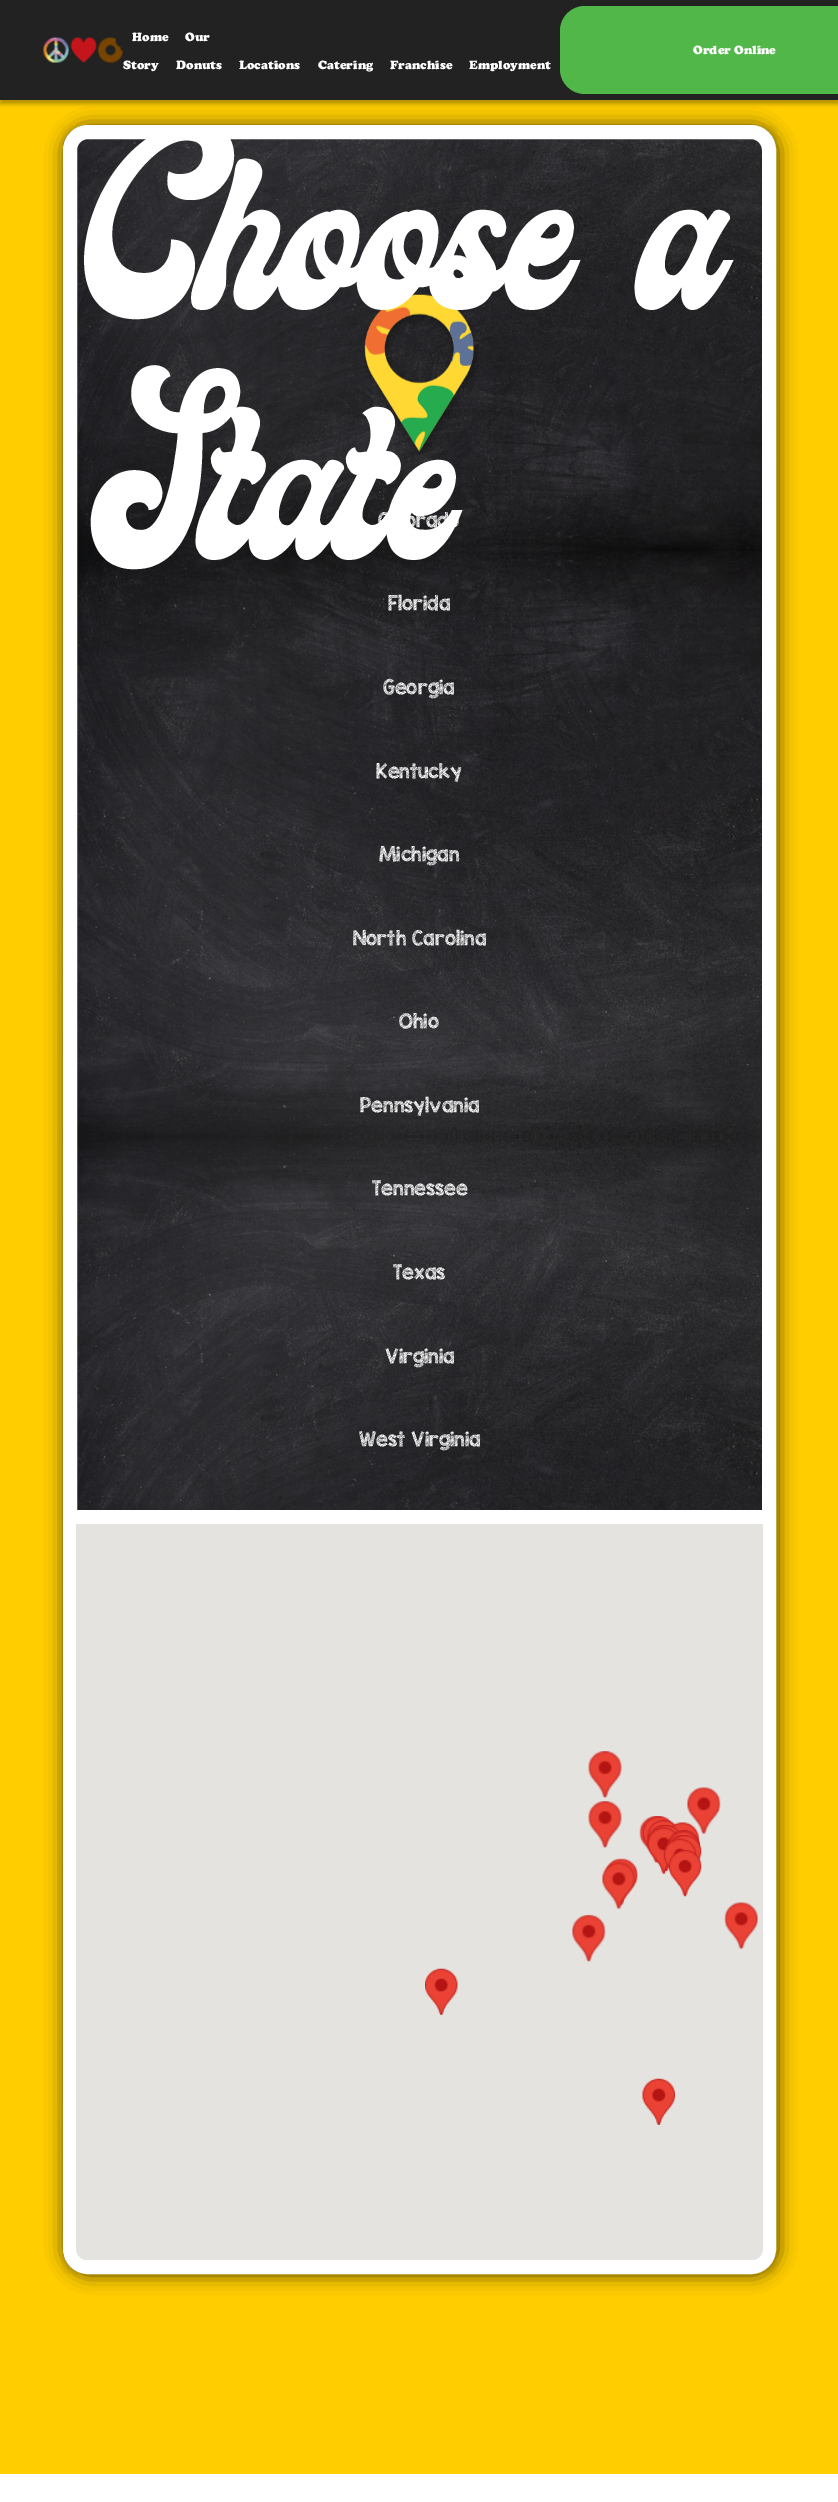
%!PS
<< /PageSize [838 2502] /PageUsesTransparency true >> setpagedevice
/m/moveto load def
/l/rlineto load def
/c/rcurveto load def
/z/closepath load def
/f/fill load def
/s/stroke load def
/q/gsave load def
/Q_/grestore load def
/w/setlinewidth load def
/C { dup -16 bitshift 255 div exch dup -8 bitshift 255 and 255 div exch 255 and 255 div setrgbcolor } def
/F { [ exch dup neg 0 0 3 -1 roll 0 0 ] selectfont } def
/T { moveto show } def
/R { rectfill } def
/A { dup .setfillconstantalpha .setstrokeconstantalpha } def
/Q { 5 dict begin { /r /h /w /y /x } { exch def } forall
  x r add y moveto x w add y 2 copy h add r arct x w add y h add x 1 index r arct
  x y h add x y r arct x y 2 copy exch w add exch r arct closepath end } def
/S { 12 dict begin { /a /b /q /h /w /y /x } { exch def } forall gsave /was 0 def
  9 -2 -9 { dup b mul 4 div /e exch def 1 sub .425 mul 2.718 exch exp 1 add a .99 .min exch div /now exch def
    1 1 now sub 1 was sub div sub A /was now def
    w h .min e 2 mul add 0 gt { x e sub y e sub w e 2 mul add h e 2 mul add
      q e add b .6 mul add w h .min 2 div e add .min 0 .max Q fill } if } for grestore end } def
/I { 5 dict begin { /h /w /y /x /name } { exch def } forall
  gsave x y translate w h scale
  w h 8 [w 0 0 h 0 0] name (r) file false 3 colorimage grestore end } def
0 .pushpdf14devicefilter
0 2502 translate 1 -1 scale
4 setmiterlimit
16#FFFFFF C
0 0 838 2502 R
16#FFCD00 C
0 100 838 2374 R
16#000000 C
0 4 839 100 0 2 .3 S
64 126 714 2149 25 9 .69 S
16#222222 C
0 0 838 100 R
(1.rgb) 43 37 80 26 I
/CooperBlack-Black 12.5 F
16#FFFFFF C
(Home) 132 41 T
(Our) 185 41 T
(Story) 123 69 T
(Donuts) 176 69 T
(Locations) 239 69 T
(Catering) 318 69 T
(Franchise) 390 69 T
(Employment) 469 69 T
16#50B748 C
560 6 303 88 25 Q f
16#FFFFFF C
(Order Online) 693 54 T
(2.rgb) 62 125 715 2149 I
14 w
70 132 699 2135 18 Q s
(3.rgb) 364 294 114 161 I
q
76 139 687 2121 11 Q clip newpath
/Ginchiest-Regular 225 F
(Choose a) 84 310 T
Q_
/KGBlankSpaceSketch-Regular 16.75 F
(Colorado) 378 527 T
/Ginchiest-Regular 225 F
(State) 84 560 T
/KGBlankSpaceSketch-Regular 16.75 F
(Florida) 388 610 T
(Georgia) 383 694 T
(Kentucky) 376 778 T
(Michigan) 379 861 T
(North Carolina) 353 945 T
(Ohio) 399 1028 T
(Pennsylvania) 360 1112 T
(Tennessee) 372 1195 T
(Texas) 393 1279 T
(Virginia) 385 1363 T
(West Virginia) 359 1446 T
77 1510 685 14 R
16#E5E3DF C
76 1524 m 687 0 l 0 725 l 0 6 -5 11 -11 11 c -665 0 l -6 0 -11 -5 -11 -11 c z f
(4.rgb) 588 1751 34 47 I
(5.rgb) 588 1801 34 47 I
(6.rgb) 639 1816 32 47 I
(7.rgb) 687 1787 34 48 I
(8.rgb) 642 1816 32 47 I
(9.rgb) 647 1820 30 25 I
(10.rgb) 670 1822 29 23 I
(11.rgb) 647 1825 31 47 I
(12.rgb) 650 1825 31 46 I
(13.rgb) 647 1827 30 47 I
(14.rgb) 667 1830 33 23 I
(15.rgb) 667 1831 33 23 I
(16.rgb) 666 1835 33 23 I
(17.rgb) 668 1835 34 26 I
(18.rgb) 663 1838 34 47 I
(19.rgb) 605 1858 33 48 I
(20.rgb) 668 1850 34 47 I
(21.rgb) 602 1862 34 48 I
(22.rgb) 572 1914 34 48 I
(23.rgb) 724 1902 34 48 I
(24.rgb) 425 1968 33 47 I
(25.rgb) 642 2078 33 47 I
.poppdf14devicefilter showpage
